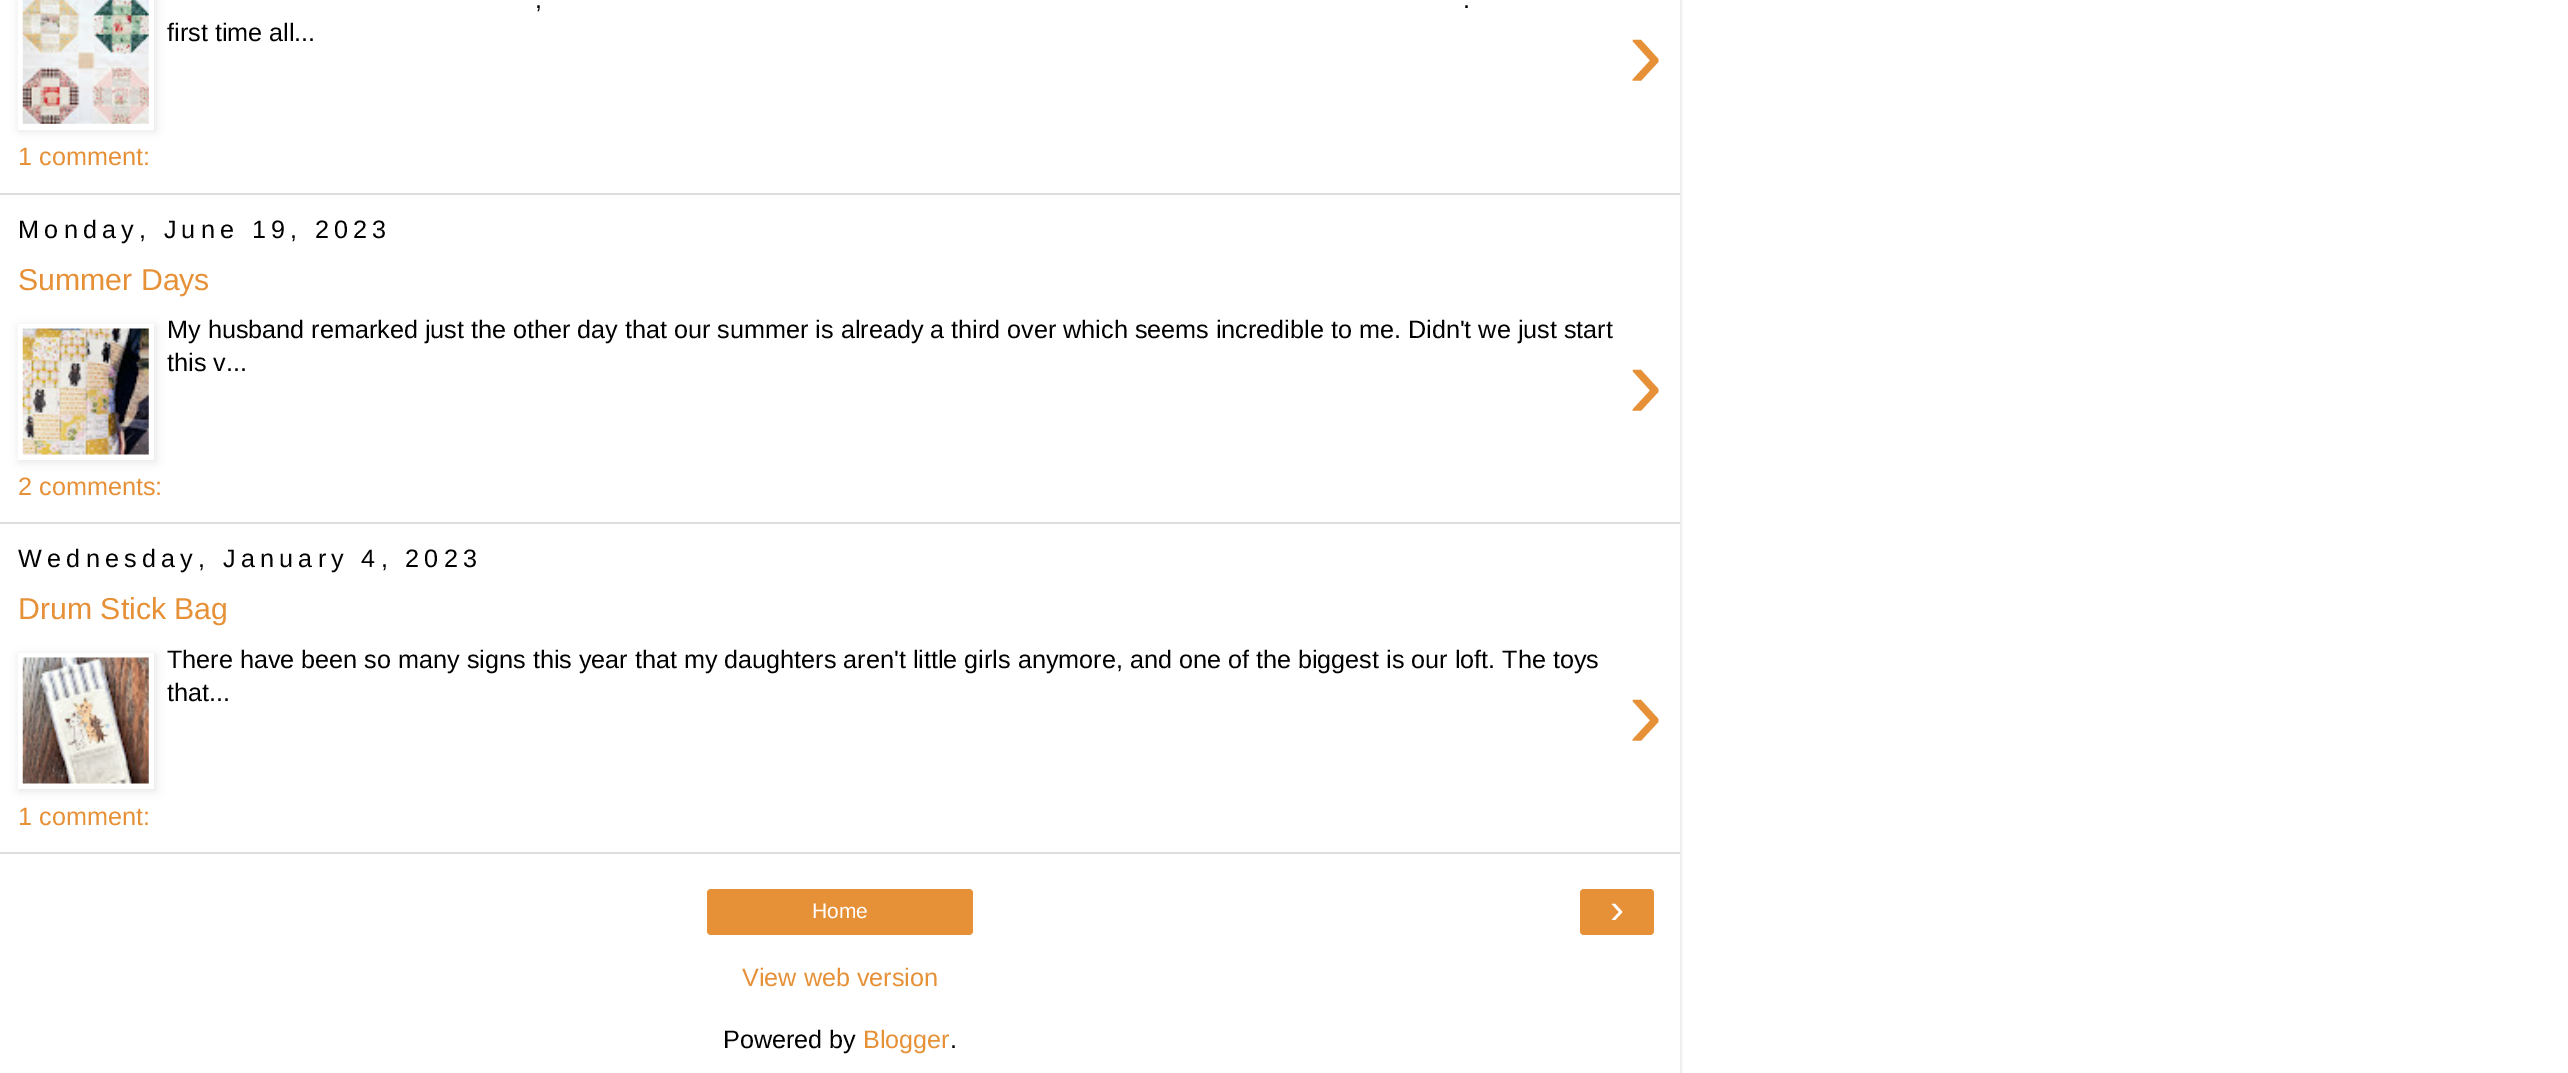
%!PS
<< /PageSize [2568 1073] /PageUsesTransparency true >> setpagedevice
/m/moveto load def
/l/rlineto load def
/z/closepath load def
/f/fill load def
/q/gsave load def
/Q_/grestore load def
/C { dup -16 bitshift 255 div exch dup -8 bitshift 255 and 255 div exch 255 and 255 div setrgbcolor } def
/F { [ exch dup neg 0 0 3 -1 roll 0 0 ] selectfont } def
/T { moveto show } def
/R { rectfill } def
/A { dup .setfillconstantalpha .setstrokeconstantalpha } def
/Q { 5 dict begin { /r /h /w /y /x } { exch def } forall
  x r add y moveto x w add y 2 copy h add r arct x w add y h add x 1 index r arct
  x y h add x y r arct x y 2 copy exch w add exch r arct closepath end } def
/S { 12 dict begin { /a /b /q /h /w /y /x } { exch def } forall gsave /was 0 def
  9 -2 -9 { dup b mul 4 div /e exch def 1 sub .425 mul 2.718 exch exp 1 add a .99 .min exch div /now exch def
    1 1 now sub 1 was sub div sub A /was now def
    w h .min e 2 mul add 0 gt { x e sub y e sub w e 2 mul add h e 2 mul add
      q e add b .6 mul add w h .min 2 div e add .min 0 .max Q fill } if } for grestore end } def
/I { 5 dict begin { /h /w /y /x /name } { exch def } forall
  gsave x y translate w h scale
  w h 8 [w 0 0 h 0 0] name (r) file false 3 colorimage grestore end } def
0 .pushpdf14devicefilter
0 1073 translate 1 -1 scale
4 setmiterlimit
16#FFFFFF C
0 0 2568 1073 R
q
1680 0 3 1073 rectclip
16#000000 C
0 -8 1680 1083 0 2.5 .15 S
Q_
16#DDDDDD C
0 193 1680 2 R
q
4 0 m 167 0 l 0 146 l -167 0 l z 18 -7 m 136 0 l 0 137 l -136 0 l z eoclip newpath
16#000000 C
19 -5 137 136 0 4.5 .1 S
Q_
(1.rgb) 22 0 127 124 I
/LiberationSans-Regular 25.2 F
16#000000 C
(,) 535 8 T
(.) 1463 8 T
(first time all...) 167 41 T
/LiberationSans-Regular 105 F
16#E69138 C
(›) 1628 88 T
/LiberationSans-Regular 25.2 F
(1 comment:) 18 165 T
16#DDDDDD C
0 522 1680 2 R
16#000000 C
18 238 m 5.25 0 (Monday, June 19, 2023) ashow
/LiberationSans-Regular 30.25 F
16#E69138 C
(Summer Days) 18 290 T
q
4 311 m 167 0 l 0 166 l -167 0 l z 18 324 m 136 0 l 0 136 l -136 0 l z eoclip newpath
16#000000 C
19 326 137 136 0 4.5 .1 S
Q_
(2.rgb) 22 328 127 127 I
/LiberationSans-Regular 25.2 F
16#000000 C
(My husband remarked just the other day that our summer is already a third over which seems incredible to me. Didn't we just start) 167 338 T
(this v...) 167 371 T
/LiberationSans-Regular 105 F
16#E69138 C
(›) 1628 418 T
/LiberationSans-Regular 25.2 F
(2 comments:) 18 495 T
16#DDDDDD C
0 852 1680 2 R
16#000000 C
18 567 m 5.25 0 (Wednesday, January 4, 2023) ashow
/LiberationSans-Regular 30.25 F
16#E69138 C
(Drum Stick Bag) 18 619 T
q
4 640 m 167 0 l 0 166 l -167 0 l z 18 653 m 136 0 l 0 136 l -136 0 l z eoclip newpath
16#000000 C
19 655 137 136 0 4.5 .1 S
Q_
(3.rgb) 22 657 127 127 I
/LiberationSans-Regular 25.2 F
16#000000 C
(There have been so many signs this year that my daughters aren't little girls anymore, and one of the biggest is our loft. The toys) 167 668 T
(that...) 167 701 T
/LiberationSans-Regular 105 F
16#E69138 C
(›) 1628 748 T
/LiberationSans-Regular 25.2 F
(1 comment:) 18 825 T
707 889 266 46 4 Q f
/LiberationSans-Regular 21 F
16#FFFFFF C
(Home) 812 918 T
16#E69138 C
1580 889 74 46 4 Q f
/LiberationSans-Regular 42 F
16#FFFFFF C
(›) 1610 923 T
/LiberationSans-Regular 25.2 F
16#E69138 C
(View web version) 742 986 T
16#000000 C
(Powered by) 723 1048 T
16#E69138 C
(Blogger) 863 1048 T
16#000000 C
(.) 950 1048 T
.poppdf14devicefilter showpage
